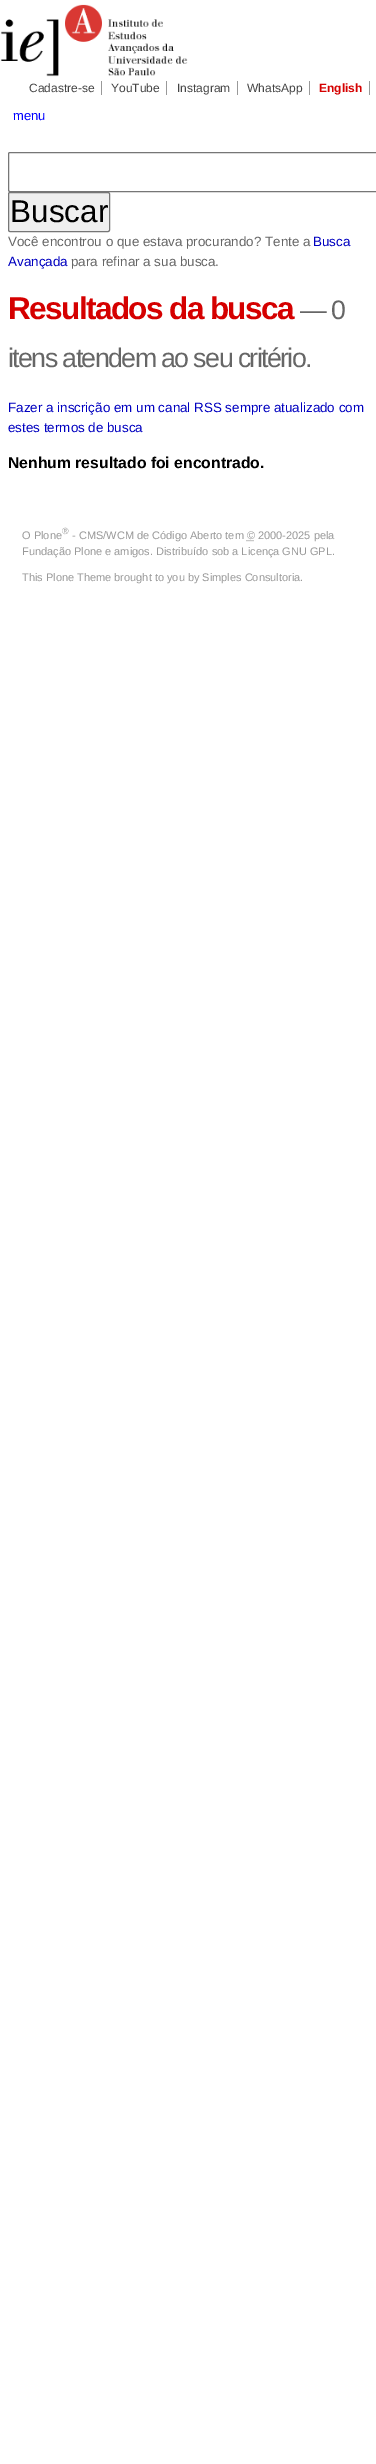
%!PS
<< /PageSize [376 2464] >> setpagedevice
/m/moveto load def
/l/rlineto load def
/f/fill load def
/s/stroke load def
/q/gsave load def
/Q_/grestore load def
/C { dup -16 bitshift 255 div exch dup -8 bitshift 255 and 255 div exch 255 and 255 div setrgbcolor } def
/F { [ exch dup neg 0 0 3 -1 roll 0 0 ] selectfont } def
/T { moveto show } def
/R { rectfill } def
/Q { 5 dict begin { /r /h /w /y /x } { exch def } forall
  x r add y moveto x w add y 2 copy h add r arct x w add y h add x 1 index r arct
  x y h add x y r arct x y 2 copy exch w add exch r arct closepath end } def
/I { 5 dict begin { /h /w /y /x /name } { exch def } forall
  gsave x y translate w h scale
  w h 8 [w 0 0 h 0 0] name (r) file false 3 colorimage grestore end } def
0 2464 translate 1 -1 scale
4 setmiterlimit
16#FFFFFF C
0 0 376 2464 R
(1.rgb) 0 4 188 73 I
/LiberationSans-Regular 12 F
16#444444 C
(Cadastre-se) 29 92 T
16#999999 C
101 81 1 14 R
16#444444 C
(YouTube) 111 92 T
16#999999 C
166 81 1 14 R
16#444444 C
(Instagram) 177 92 T
16#999999 C
237 81 1 14 R
16#444444 C
(WhatsApp) 247 92 T
16#999999 C
309 81 1 14 R
/LiberationSans-Bold 12 F
16#D50000 C
(English) 319 92 T
16#999999 C
369 81 1 14 R
/LiberationSans-Regular 13 F
16#0000FF C
(menu) 13 120 T
16#767676 C
8.5 152.5 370 39 1.5 Q s
16#EFEFEF C
8.5 192.5 101 39 1.5 Q q f Q_
16#767676 C
s
/LiberationSans-Regular 31.5 F
16#000000 C
(Buscar) 10 222 T
/LiberationSans-Regular 13.4 F
16#666666 C
(Você encontrou o que estava procurando? Tente a) 8 246 T
16#0000C0 C
(Busca) 313 246 T
(Avançada) 8 266 T
16#666666 C
(para refinar a sua busca.) 71 266 T
/LiberationSans-Bold 31.5 F
16#D50000 C
8 319 m -1.6 0 (Resultados da busca) ashow
/LiberationSans-Regular 26.75 F
16#666666 C
300 319 m -1.6 0 (— 0) ashow
8 367 m -1.6 0 (itens atendem ao seu critério.) ashow
/LiberationSans-Regular 13.4 F
16#0000C0 C
(Fazer a inscrição em um canal RSS sempre atualizado com) 8 412 T
(estes termos de busca) 8 432 T
/LiberationSans-Bold 15.75 F
16#000000 C
(Nenhum resultado foi encontrado.) 8 468 T
/LiberationSans-Regular 11 F
16#999999 C
(O Plone) 22 539 T
/LiberationSans-Regular 9 F
(®) 62 534 T
/LiberationSans-Regular 11 F
(- CMS/WCM de Código Aberto tem © 2000-2025 pela) 72 539 T
[1 1] 0 setdash
246.5 540.5 m 8 0 l s
(Fundação Plone e amigos. Distribuído sob a Licença GNU GPL.) 22 555 T
(This Plone Theme brought to you by Simples Consultoria.) 22 581 T
showpage
